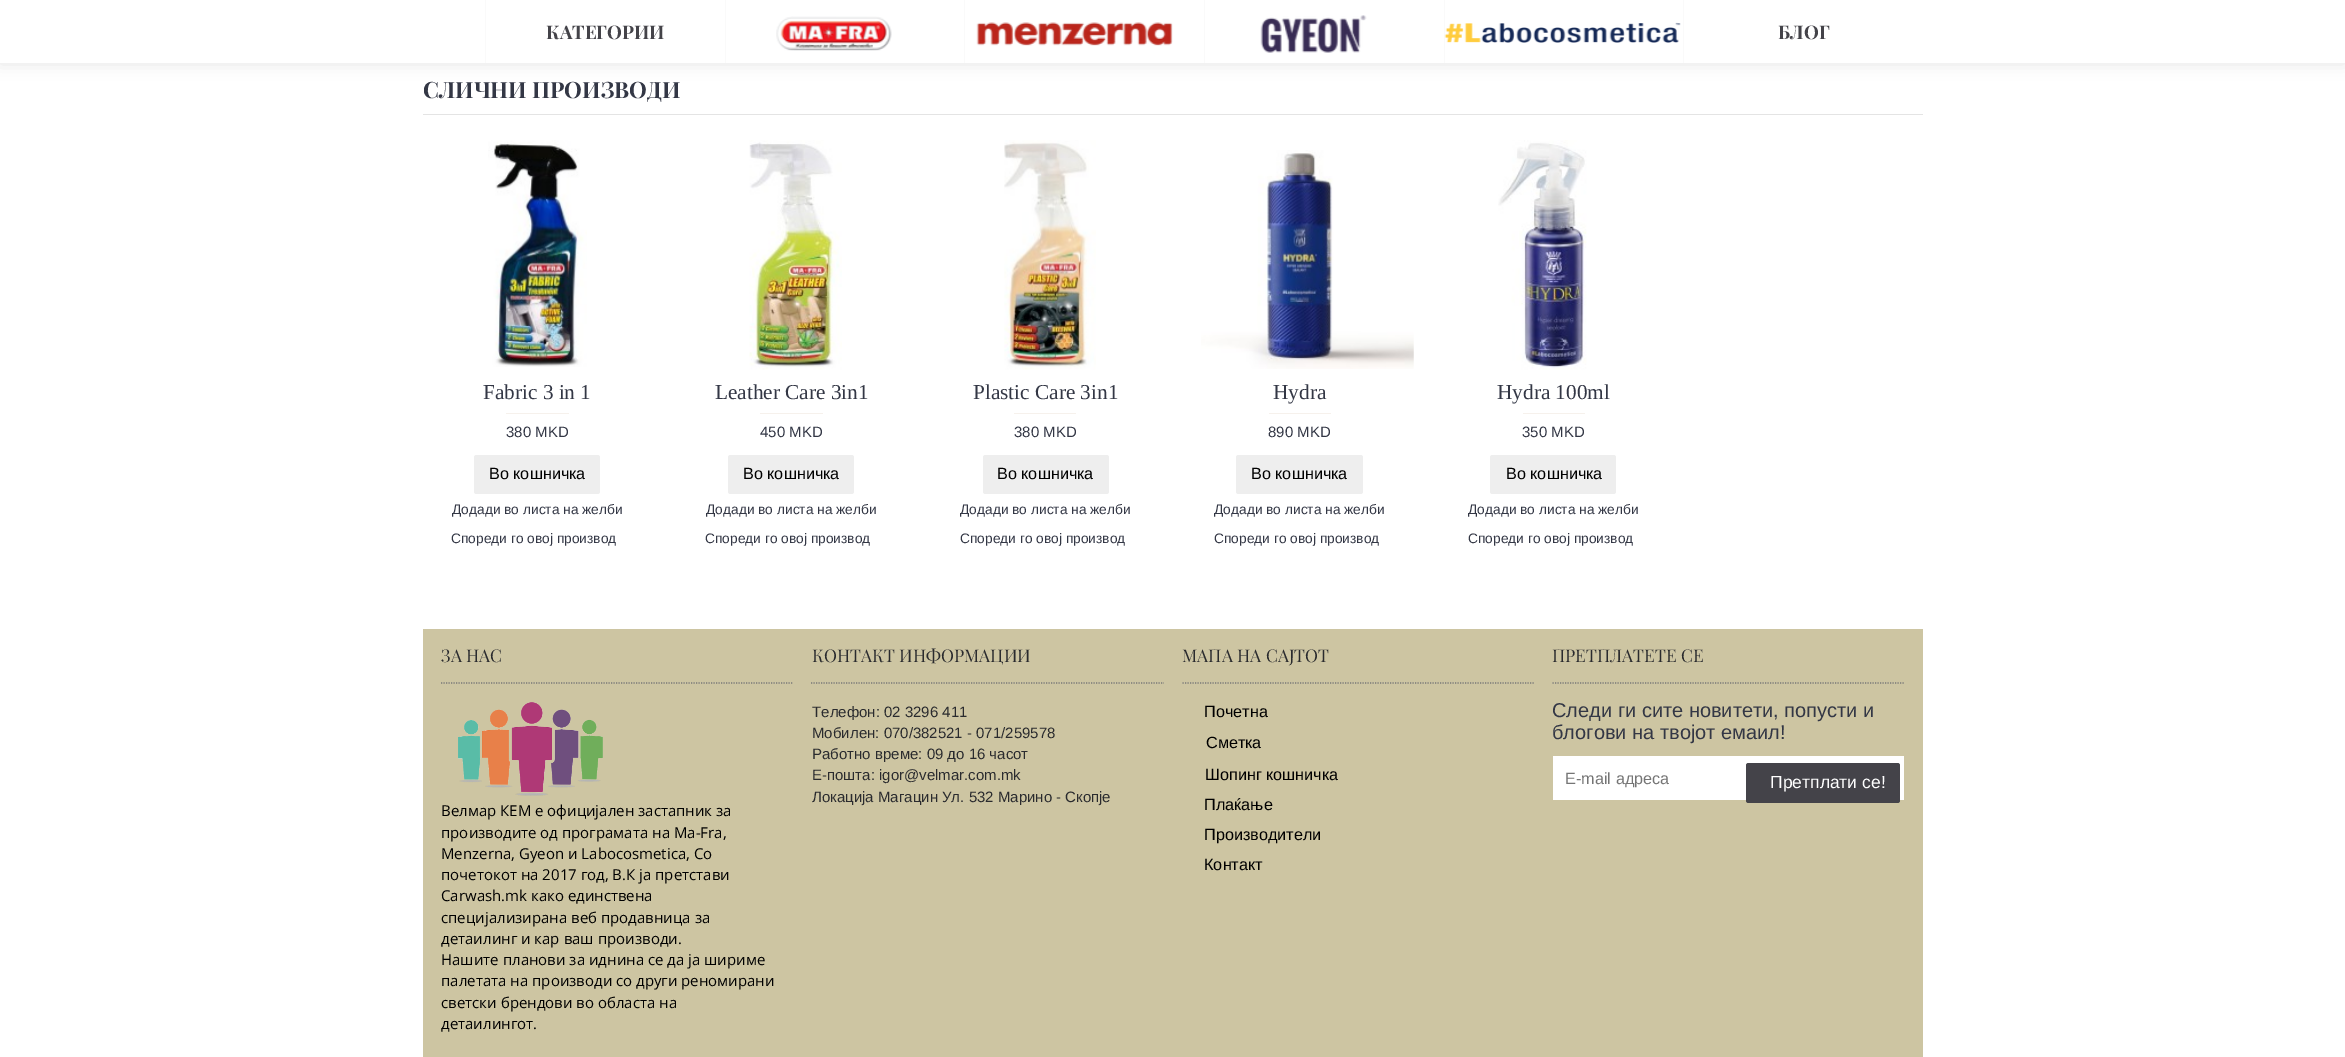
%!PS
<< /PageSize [2345 1057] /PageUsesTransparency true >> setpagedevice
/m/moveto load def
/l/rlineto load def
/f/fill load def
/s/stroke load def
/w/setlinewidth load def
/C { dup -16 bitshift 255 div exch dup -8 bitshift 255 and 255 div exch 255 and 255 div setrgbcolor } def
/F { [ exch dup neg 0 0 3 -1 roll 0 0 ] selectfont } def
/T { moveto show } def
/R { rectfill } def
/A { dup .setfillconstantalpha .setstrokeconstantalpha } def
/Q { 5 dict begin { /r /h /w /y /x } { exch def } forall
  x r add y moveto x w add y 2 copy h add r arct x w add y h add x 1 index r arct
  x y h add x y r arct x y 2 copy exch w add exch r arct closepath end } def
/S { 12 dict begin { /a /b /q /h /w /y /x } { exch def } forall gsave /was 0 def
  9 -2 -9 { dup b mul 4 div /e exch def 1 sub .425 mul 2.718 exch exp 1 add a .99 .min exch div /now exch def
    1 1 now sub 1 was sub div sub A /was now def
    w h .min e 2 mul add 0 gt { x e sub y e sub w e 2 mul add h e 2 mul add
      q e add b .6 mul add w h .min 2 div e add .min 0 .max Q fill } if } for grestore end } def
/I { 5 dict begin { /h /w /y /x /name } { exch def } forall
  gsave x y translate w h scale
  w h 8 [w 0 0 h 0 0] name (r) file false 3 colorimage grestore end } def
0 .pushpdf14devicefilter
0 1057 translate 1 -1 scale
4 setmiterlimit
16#FFFFFF C
0 0 2345 1057 R
16#000000 C
0 1 2345 63 0 7.5 .1 S
16#FFFFFF C
0 0 2345 63 R
16#FAFAFA C
485 0 1 63 R
/PlayfairDisplay-Bold 18.75 F
16#444349 C
(КАТЕГОРИИ) 546 39 T
16#FAFAFA C
725 0 1 63 R
(1.rgb) 776 16 116 35 I
964 0 1 63 R
(2.rgb) 976 22 197 24 I
1204 0 1 63 R
(3.rgb) 1260 15 107 38 I
1444 0 1 63 R
(4.rgb) 1444 22 237 21 I
1683 0 1 63 R
16#444349 C
(БЛОГ) 1778 39 T
16#E4E4E4 C
423 114 1500 1 R
/PlayfairDisplay-Bold 22.5 F
16#333745 C
(СЛИЧНИ ПРОИЗВОДИ) 423 98 T
(5.rgb) 488 140 99 227 I
/LiberationSerif-Regular 21.25 F
(Fabric 3 in 1) 483 399 T
16#F6F1EC C
506 413 63 1 R
/LiberationSans-Regular 15 F
16#333745 C
(380 MKD) 506 437 T
16#EEEEEE C
474 455 126 39 2.5 Q f
/LiberationSans-Regular 16.25 F
16#000000 C
(Во кошничка) 489 479 T
/LiberationSans-Regular 13.75 F
16#333745 C
(Додади во листа на желби) 452 514 T
(Спореди го овој производ) 451 543 T
(6.rgb) 749 140 93 230 I
/LiberationSerif-Regular 21.25 F
(Leather Care 3in1) 715 399 T
16#F6F1EC C
760 413 63 1 R
/LiberationSans-Regular 15 F
16#333745 C
(450 MKD) 760 437 T
16#EEEEEE C
728 455 126 39 2.5 Q f
/LiberationSans-Regular 16.25 F
16#000000 C
(Во кошничка) 743 479 T
/LiberationSans-Regular 13.75 F
16#333745 C
(Додади во листа на желби) 706 514 T
(Спореди го овој производ) 705 543 T
(7.rgb) 1004 140 92 230 I
/LiberationSerif-Regular 21.25 F
(Plastic Care 3in1) 973 399 T
16#F6F1EC C
1014 413 62 1 R
/LiberationSans-Regular 15 F
16#333745 C
(380 MKD) 1014 437 T
16#EEEEEE C
983 455 126 39 2.5 Q f
/LiberationSans-Regular 16.25 F
16#000000 C
(Во кошничка) 997 479 T
/LiberationSans-Regular 13.75 F
16#333745 C
(Додади во листа на желби) 960 514 T
(Спореди го овој производ) 960 543 T
(8.rgb) 1201 150 213 219 I
/LiberationSerif-Regular 21.25 F
(Hydra) 1273 399 T
16#F6F1EC C
1269 413 62 1 R
/LiberationSans-Regular 15 F
16#333745 C
(890 MKD) 1268 437 T
16#EEEEEE C
1236 455 127 39 2.5 Q f
/LiberationSans-Regular 16.25 F
16#000000 C
(Во кошничка) 1251 479 T
/LiberationSans-Regular 13.75 F
16#333745 C
(Додади во листа на желби) 1214 514 T
(Спореди го овој производ) 1214 543 T
(9.rgb) 1498 140 89 230 I
/LiberationSerif-Regular 21.25 F
(Hydra 100ml) 1497 399 T
16#F6F1EC C
1523 413 62 1 R
/LiberationSans-Regular 15 F
16#333745 C
(350 MKD) 1522 437 T
16#EEEEEE C
1490 455 126 39 2.5 Q f
/LiberationSans-Regular 16.25 F
16#000000 C
(Во кошничка) 1506 479 T
/LiberationSans-Regular 13.75 F
16#333745 C
(Додади во листа на желби) 1468 514 T
(Спореди го овој производ) 1468 543 T
16#CDC5A2 C
423 629 1500 428 R
16#777777 C
1.2 w
[1.25 1.25] 0 setdash
441 683 m 351.5 0 l s
/PlayfairDisplay-Regular 17.5 F
16#2A2B2E C
(ЗА НАС) 441 662 T
(10.rgb) 458 702 145 94 I
/OpenSans-Regular 15 F
16#000000 C
(Велмар КЕМ е официјален застапник за) 441 816 T
(производите од програмата на Ma-Fra,) 441 838 T
(Menzerna, Gyeon и Labocosmetica, Со) 441 859 T
(почетокот на 2017 год, В.К ја претстави) 441 880 T
(Carwash.mk како единствена) 441 901 T
(специјализирана веб продавница за) 441 923 T
(детаилинг и кар ваш производи.) 441 944 T
(Нашите планови за иднина се да ја шириме) 441 965 T
(палетата на производи со други реномирани) 441 986 T
(светски брендови во областа на) 441 1008 T
(детаилингот.) 441 1029 T
16#777777 C
811 683 m 353 0 l s
/PlayfairDisplay-Regular 17.5 F
16#2A2B2E C
(КОНТАКТ ИНФОРМАЦИИ) 812 662 T
/LiberationSans-Regular 15 F
(Телефон: 02 3296 411) 812 717 T
(Мобилен: 070/382521 - 071/259578) 812 738 T
(Работно време: 09 до 16 часот) 812 759 T
(Е-пошта: igor@velmar.com.mk) 812 780 T
(Локација Магацин Ул. 532 Марино - Скопје) 812 802 T
16#777777 C
1182.5 683 m 351.5 0 l s
/PlayfairDisplay-Regular 17.5 F
16#2A2B2E C
(МАПА НА САЈТОТ) 1182 662 T
/LiberationSans-Regular 16.25 F
16#000000 C
(Почетна) 1204 717 T
(Сметка) 1206 748 T
(Шопинг кошничка) 1205 780 T
(Плаќање) 1204 810 T
(Производители) 1204 840 T
(Контакт) 1204 870 T
16#777777 C
1552.5 683 m 351.5 0 l s
/PlayfairDisplay-Regular 17.5 F
16#2A2B2E C
(ПРЕТПЛАТЕТЕ СЕ) 1552 662 T
/LiberationSans-Regular 20 F
16#333745 C
(Следи ги сите новитети, попусти и) 1552 717 T
(блогови на твојот емаил!) 1552 739 T
16#FFFFFF C
1553 756 351 44 R
/LiberationSans-Regular 16.25 F
16#757575 C
(E-mail адреса) 1565 784 T
16#444349 C
1746 763 154 40 2.5 Q f
/LiberationSans-Regular 17.5 F
16#FFFFFF C
(Претплати се!) 1770 788 T
.poppdf14devicefilter showpage
